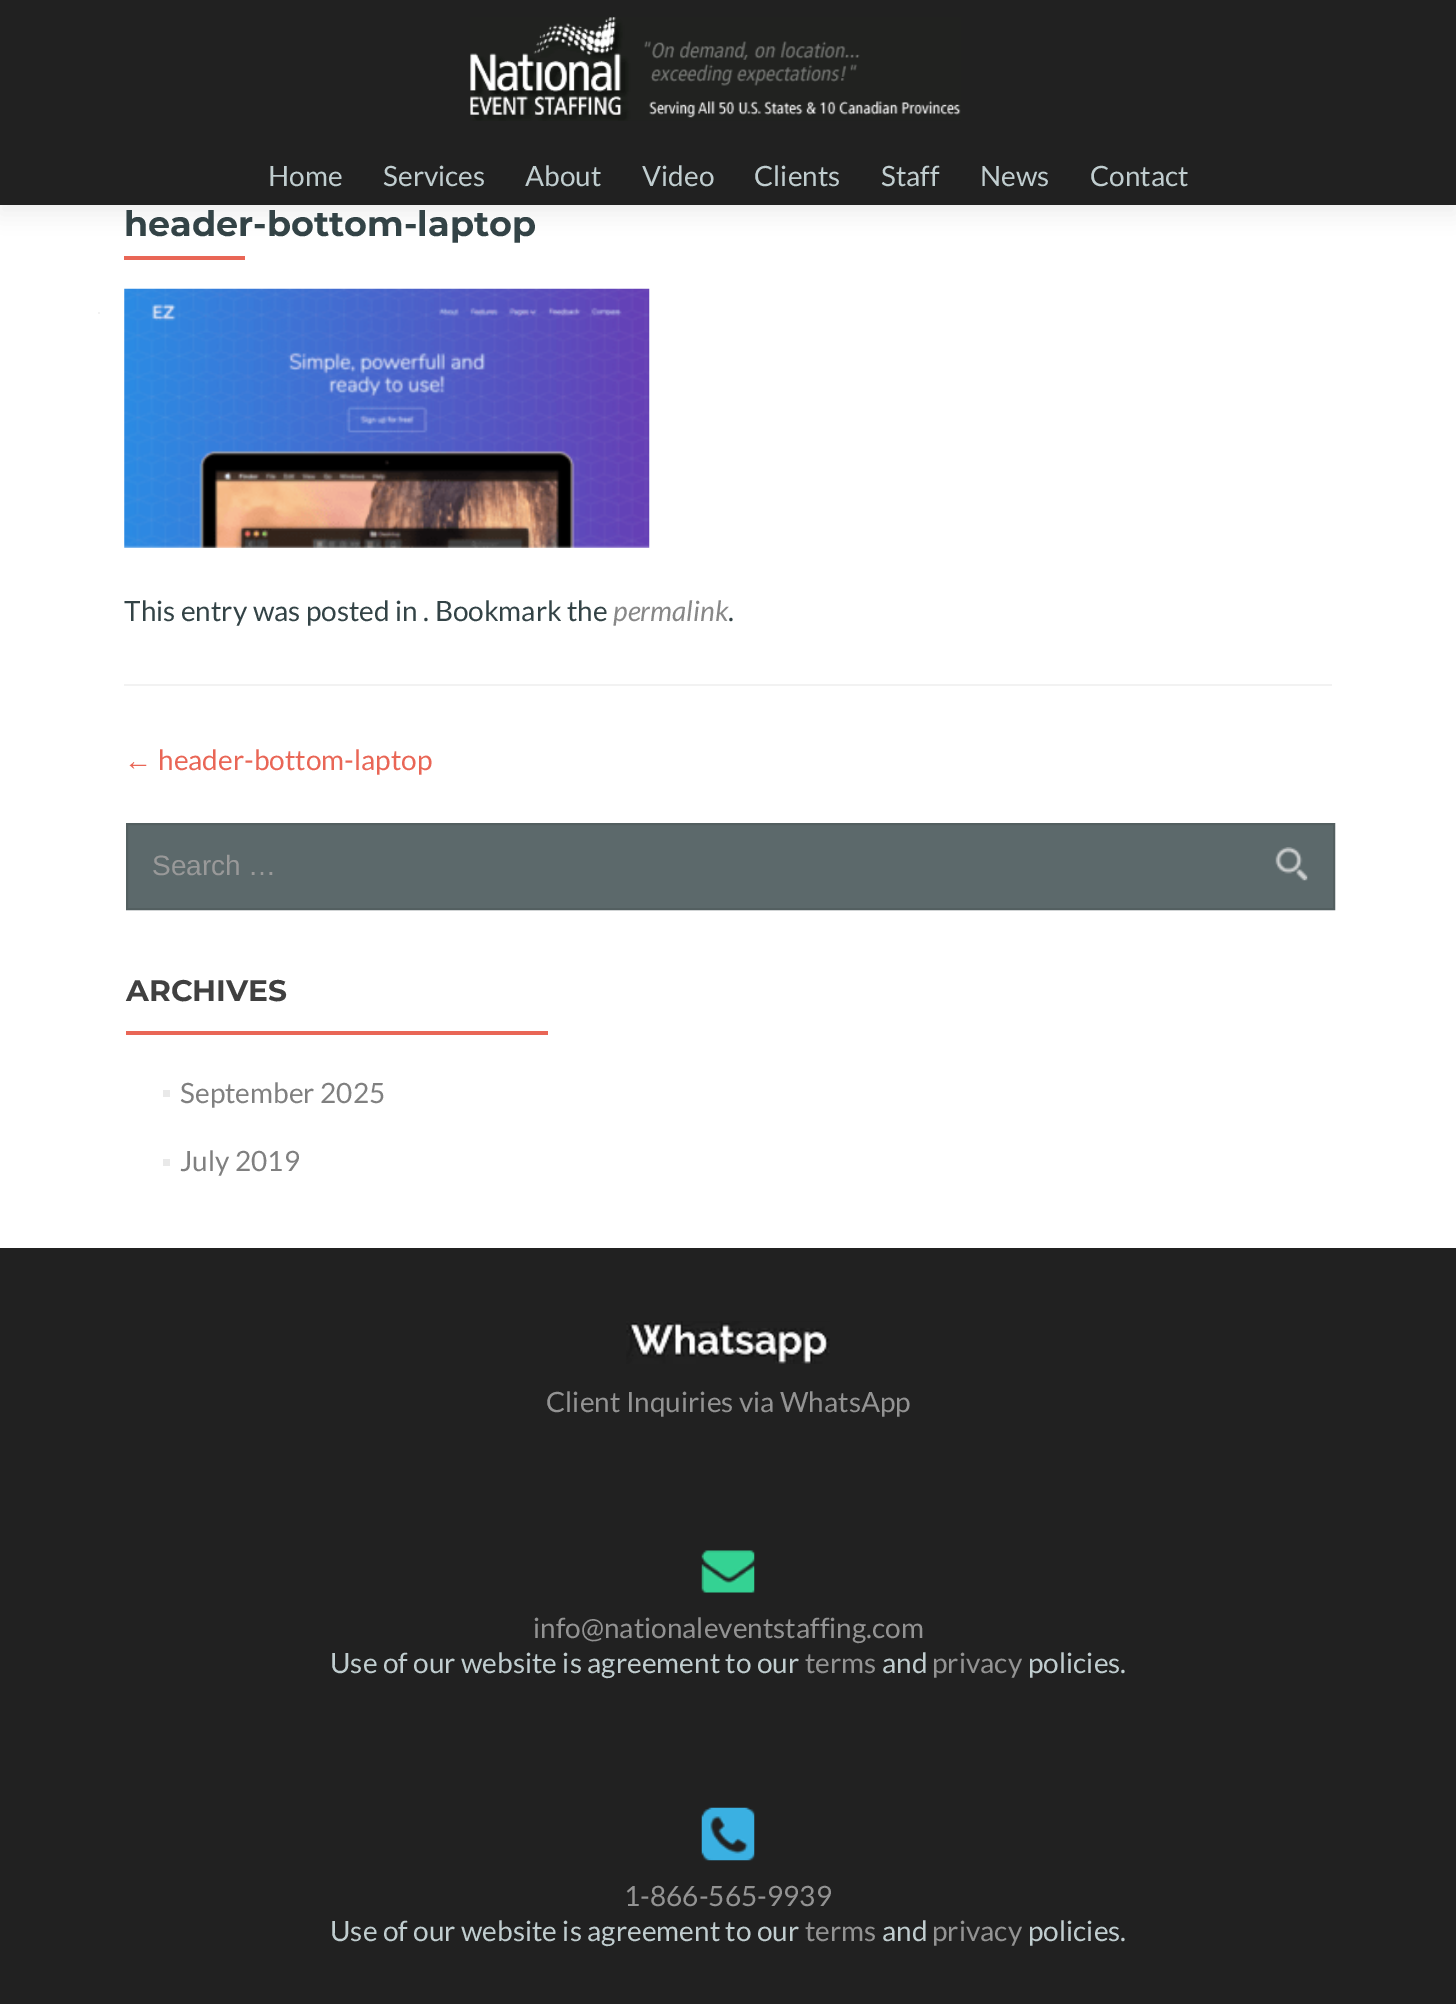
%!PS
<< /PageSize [1456 2004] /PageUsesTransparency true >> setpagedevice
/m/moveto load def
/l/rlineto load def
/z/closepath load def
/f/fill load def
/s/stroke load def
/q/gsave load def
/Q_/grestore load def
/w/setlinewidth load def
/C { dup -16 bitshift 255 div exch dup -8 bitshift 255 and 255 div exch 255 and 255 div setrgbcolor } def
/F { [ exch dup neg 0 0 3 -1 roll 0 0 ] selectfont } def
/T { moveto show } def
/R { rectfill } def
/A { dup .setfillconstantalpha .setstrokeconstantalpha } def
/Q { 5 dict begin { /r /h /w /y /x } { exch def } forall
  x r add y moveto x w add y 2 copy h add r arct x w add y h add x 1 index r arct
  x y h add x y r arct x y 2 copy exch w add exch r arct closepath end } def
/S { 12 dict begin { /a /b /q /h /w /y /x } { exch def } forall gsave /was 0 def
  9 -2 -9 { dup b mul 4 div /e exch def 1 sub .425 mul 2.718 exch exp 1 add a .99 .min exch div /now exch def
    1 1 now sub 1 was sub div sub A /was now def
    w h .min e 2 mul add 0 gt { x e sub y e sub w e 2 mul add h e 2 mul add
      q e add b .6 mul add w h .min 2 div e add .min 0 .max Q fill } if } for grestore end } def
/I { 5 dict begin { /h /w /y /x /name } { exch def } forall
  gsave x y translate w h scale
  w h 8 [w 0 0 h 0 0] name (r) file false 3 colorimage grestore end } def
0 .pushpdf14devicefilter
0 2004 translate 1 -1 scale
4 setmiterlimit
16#FFFFFF C
0 0 1456 2004 R
16#323232 C
0 9 1456 205 0 9.5 .08 S
16#212121 C
0 0 1456 205 R
(1.rgb) 470 17 491 104 I
/Lato-Regular 28 F
16#C0CDCF C
(Home) 268 186 T
(Services) 383 186 T
(About) 525 186 T
(Video) 642 186 T
(Clients) 754 186 T
(Staff) 881 186 T
(News) 980 186 T
(Contact) 1090 186 T
16#F2F2F2 C
124 684 1208 2 R
/Montserrat-Thin 35 F
16#334346 C
(header-bottom-laptop) 124 236 T
16#E96656 C
124 256 121 4 R
(2.rgb) 124 288 526 260 I
/Lato-Regular 28 F
16#334346 C
(This entry was posted in . Bookmark the) 124 621 T
/Lato-Italic 28 F
16#888888 C
(permalink) 613 621 T
/Lato-Regular 28 F
16#334346 C
(.) 728 621 T
/LiberationSans-Regular 28 F
16#E96656 C
(←) 124 770 T
/Lato-Regular 28 F
(header-bottom-laptop) 158 770 T
16#F2F2F2 C
98 312 2 2 R
16#5C696B C
127 824 m 1207 0 l 0 85 l -1207 0 l z q f Q_
16#535F60 C
2 w
s
/LiberationSans-Regular 28 F
16#999999 C
(Search …) 152 875 T
(3.rgb) 1275 847 33 34 I
/Montserrat-Thin 29.75 F
16#404040 C
(ARCHIVES) 126 1001 T
16#E96656 C
126 1031 422 4 R
16#E9E9E9 C
163 1090 7 7 R
/Lato-Regular 28 F
16#808080 C
(September 2025) 180 1103 T
16#E9E9E9 C
163 1159 7 7 R
16#808080 C
(July 2019) 180 1171 T
16#212121 C
0 1248 1456 756 R
(4.rgb) 626 1321 204 43 I
16#939393 C
(Client Inquiries via WhatsApp) 546 1412 T
(5.rgb) 701 1550 54 43 I
(info@nationaleventstaffing.com) 533 1638 T
16#C0CDCF C
(Use of our website is agreement to our) 330 1673 T
16#939393 C
(terms) 805 1673 T
16#C0CDCF C
(and) 882 1673 T
16#939393 C
(privacy) 932 1673 T
16#C0CDCF C
(policies.) 1028 1673 T
(6.rgb) 701 1807 54 54 I
16#939393 C
(1-866-565-9939) 624 1906 T
16#C0CDCF C
(Use of our website is agreement to our) 330 1941 T
16#939393 C
(terms) 805 1941 T
16#C0CDCF C
(and) 882 1941 T
16#939393 C
(privacy) 932 1941 T
16#C0CDCF C
(policies.) 1028 1941 T
.poppdf14devicefilter showpage
